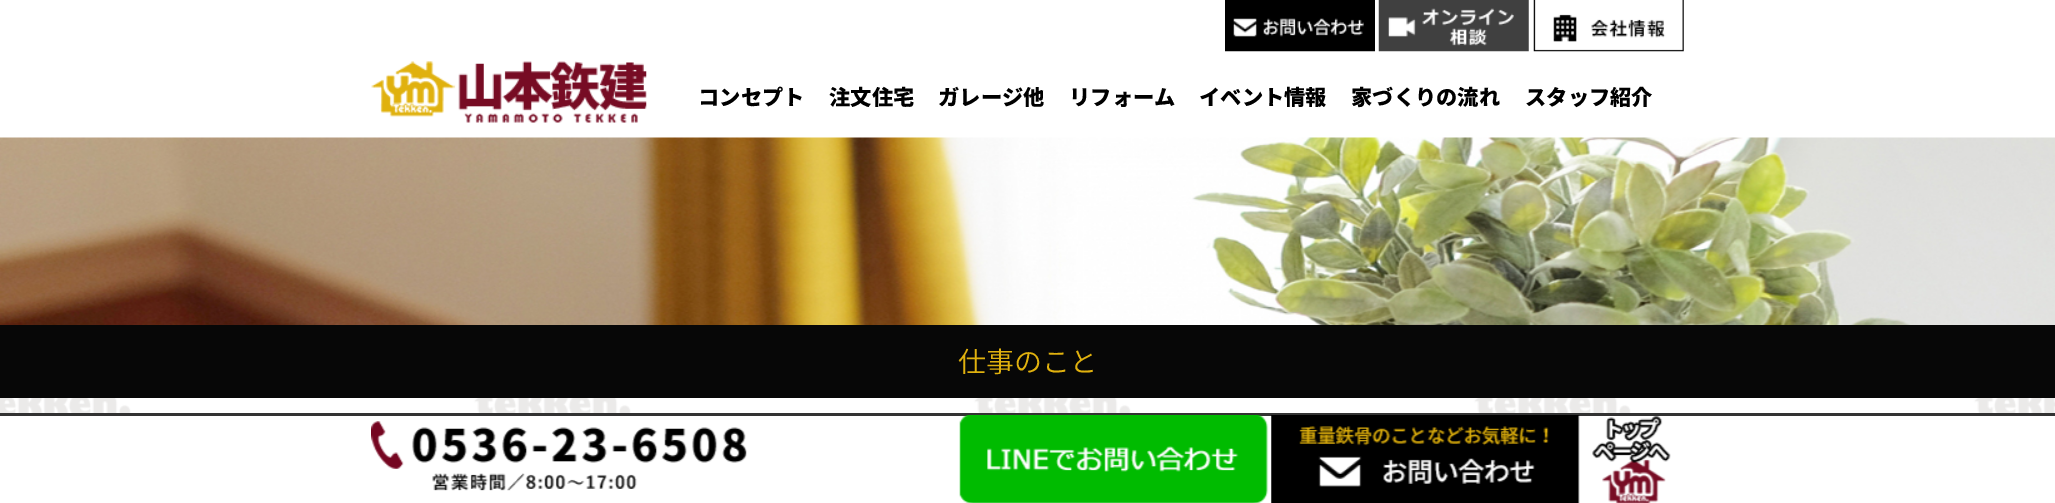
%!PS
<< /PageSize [2055 503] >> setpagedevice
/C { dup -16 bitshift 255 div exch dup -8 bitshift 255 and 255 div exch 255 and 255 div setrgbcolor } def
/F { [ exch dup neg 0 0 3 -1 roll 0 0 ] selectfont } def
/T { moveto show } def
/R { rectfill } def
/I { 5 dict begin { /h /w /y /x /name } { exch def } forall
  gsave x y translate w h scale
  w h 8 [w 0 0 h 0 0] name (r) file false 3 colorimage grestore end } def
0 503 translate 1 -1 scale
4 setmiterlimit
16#FFFFFF C
0 0 2055 503 R
(1.rgb) 0 398 2055 15 I
(2.rgb) 1225 0 150 52 I
(3.rgb) 1378 0 151 52 I
(4.rgb) 1533 0 151 52 I
(5.rgb) 371 61 276 62 I
/NotoSansCJKJP-Black 21.25 F
16#000000 C
(コンセプト) 698 105 T
(注文住宅) 829 105 T
(ガレージ他) 938 105 T
(リフォーム) 1069 105 T
(イベント情報) 1199 105 T
(家づくりの流れ) 1351 105 T
(スタッフ紹介) 1525 105 T
(6.rgb) 0 137 2055 188 I
16#070707 C
0 325 2055 73 R
/NotoSansCJKJP-Light 28 F
16#E0B10E C
(仕事のこと) 958 372 T
16#333333 C
0 413 2055 3 R
(7.rgb) 371 421 376 70 I
(8.rgb) 959 415 310 88 I
(9.rgb) 1271 415 309 88 I
(10.rgb) 1592 416 79 87 I
showpage
